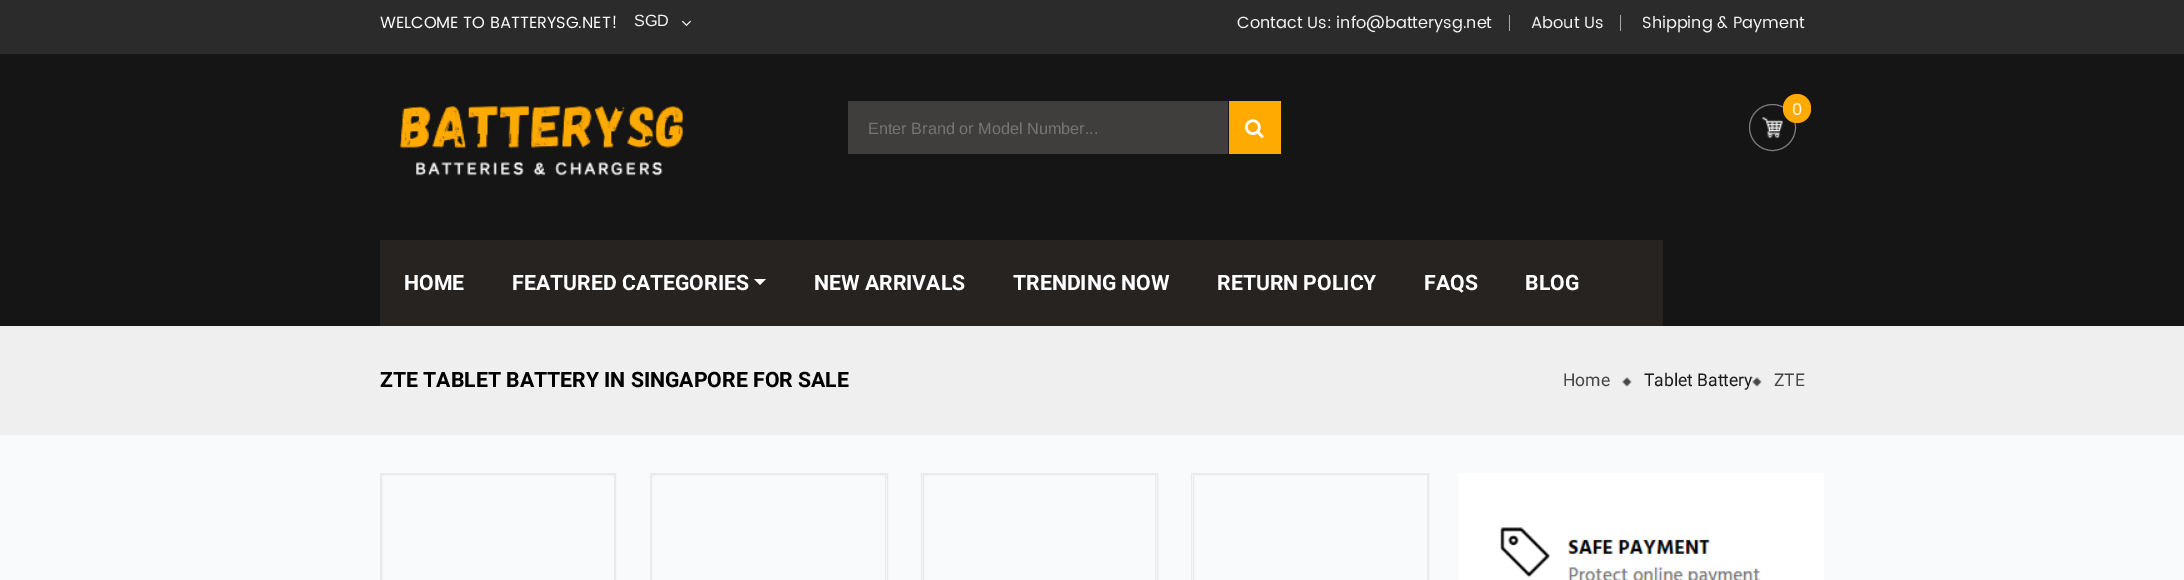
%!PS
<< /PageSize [2184 580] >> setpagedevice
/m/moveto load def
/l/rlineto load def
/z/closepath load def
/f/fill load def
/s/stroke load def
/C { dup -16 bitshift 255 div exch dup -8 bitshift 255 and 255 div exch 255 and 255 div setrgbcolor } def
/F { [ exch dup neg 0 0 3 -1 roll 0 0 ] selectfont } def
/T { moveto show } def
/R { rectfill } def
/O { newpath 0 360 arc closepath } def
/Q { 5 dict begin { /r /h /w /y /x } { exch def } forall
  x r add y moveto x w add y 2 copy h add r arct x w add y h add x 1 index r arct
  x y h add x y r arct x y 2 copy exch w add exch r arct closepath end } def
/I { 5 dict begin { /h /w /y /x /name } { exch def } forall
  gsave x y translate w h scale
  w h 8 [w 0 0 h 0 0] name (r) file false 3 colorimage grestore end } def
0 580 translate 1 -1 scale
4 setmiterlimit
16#F8FAFC C
0 0 2184 580 R
16#2B2B2B C
0 0 2184 54 R
/Poppins-Regular 16.25 F
16#FFFFFF C
(WELCOME TO BATTERYSG.NET!) 380 28 T
/LiberationSans-Regular 16.25 F
16#F2F2F2 C
(SGD) 634 26 T
(1.rgb) 682 20 9 6 I
16#A8A8A8 C
1509 15 1 16 R
/Poppins-Regular 16.25 F
16#F2F2F2 C
(Contact Us: info@batterysg.net) 1237 28 T
16#A8A8A8 C
1620 15 1 16 R
16#F2F2F2 C
(About Us) 1531 28 T
(Shipping & Payment) 1642 28 T
16#151515 C
0 54 2184 272 R
(2.rgb) 399 106 285 70 I
16#7C7C7C C
1772.5 127.5 23 O s
(3.rgb) 1762 117 21 21 I
16#FFAA00 C
1783 94 28 29 14 Q f
16#FFFFFF C
(0) 1792 115 T
16#403E3C C
848 101 380 53 R
/LiberationSans-Regular 16.25 F
16#757575 C
(Enter Brand or Model Number...) 868 134 T
16#FFAA00 C
1229 101 52 53 R
(4.rgb) 1245 119 19 19 I
16#262321 C
380 240 1283 86 R
/Roboto-Bold 21.25 F
16#FFFFFF C
(HOME) 404 290 T
(FEATURED CATEGORIES) 512 290 T
754 279 m 12 0 l -6 6 l z f
(NEW ARRIVALS) 814 290 T
(TRENDING NOW) 1013 290 T
(RETURN POLICY) 1217 290 T
(FAQS) 1424 290 T
(BLOG) 1525 290 T
16#EFEFEF C
0 326 2184 109 R
16#000000 C
(ZTE TABLET BATTERY IN SINGAPORE FOR SALE) 380 387 T
/Roboto-Regular 17.5 F
16#464646 C
(Home) 1563 386 T
(5.rgb) 1622 377 10 10 I
16#1C1C1C C
(Tablet Battery) 1644 386 T
(6.rgb) 1752 377 10 10 I
16#464646 C
(ZTE) 1774 386 T
16#EAEAEA C
380.5 473.5 235 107 rectstroke
381.5 474.5 233 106 rectstroke
650.5 473.5 237 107 rectstroke
651.5 474.5 234 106 rectstroke
921.5 473.5 236 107 rectstroke
923.5 474.5 232 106 rectstroke
1191.5 473.5 237 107 rectstroke
1193.5 474.5 234 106 rectstroke
16#FFFFFF C
1459 473 365 107 R
(7.rgb) 1500 527 261 53 I
showpage
